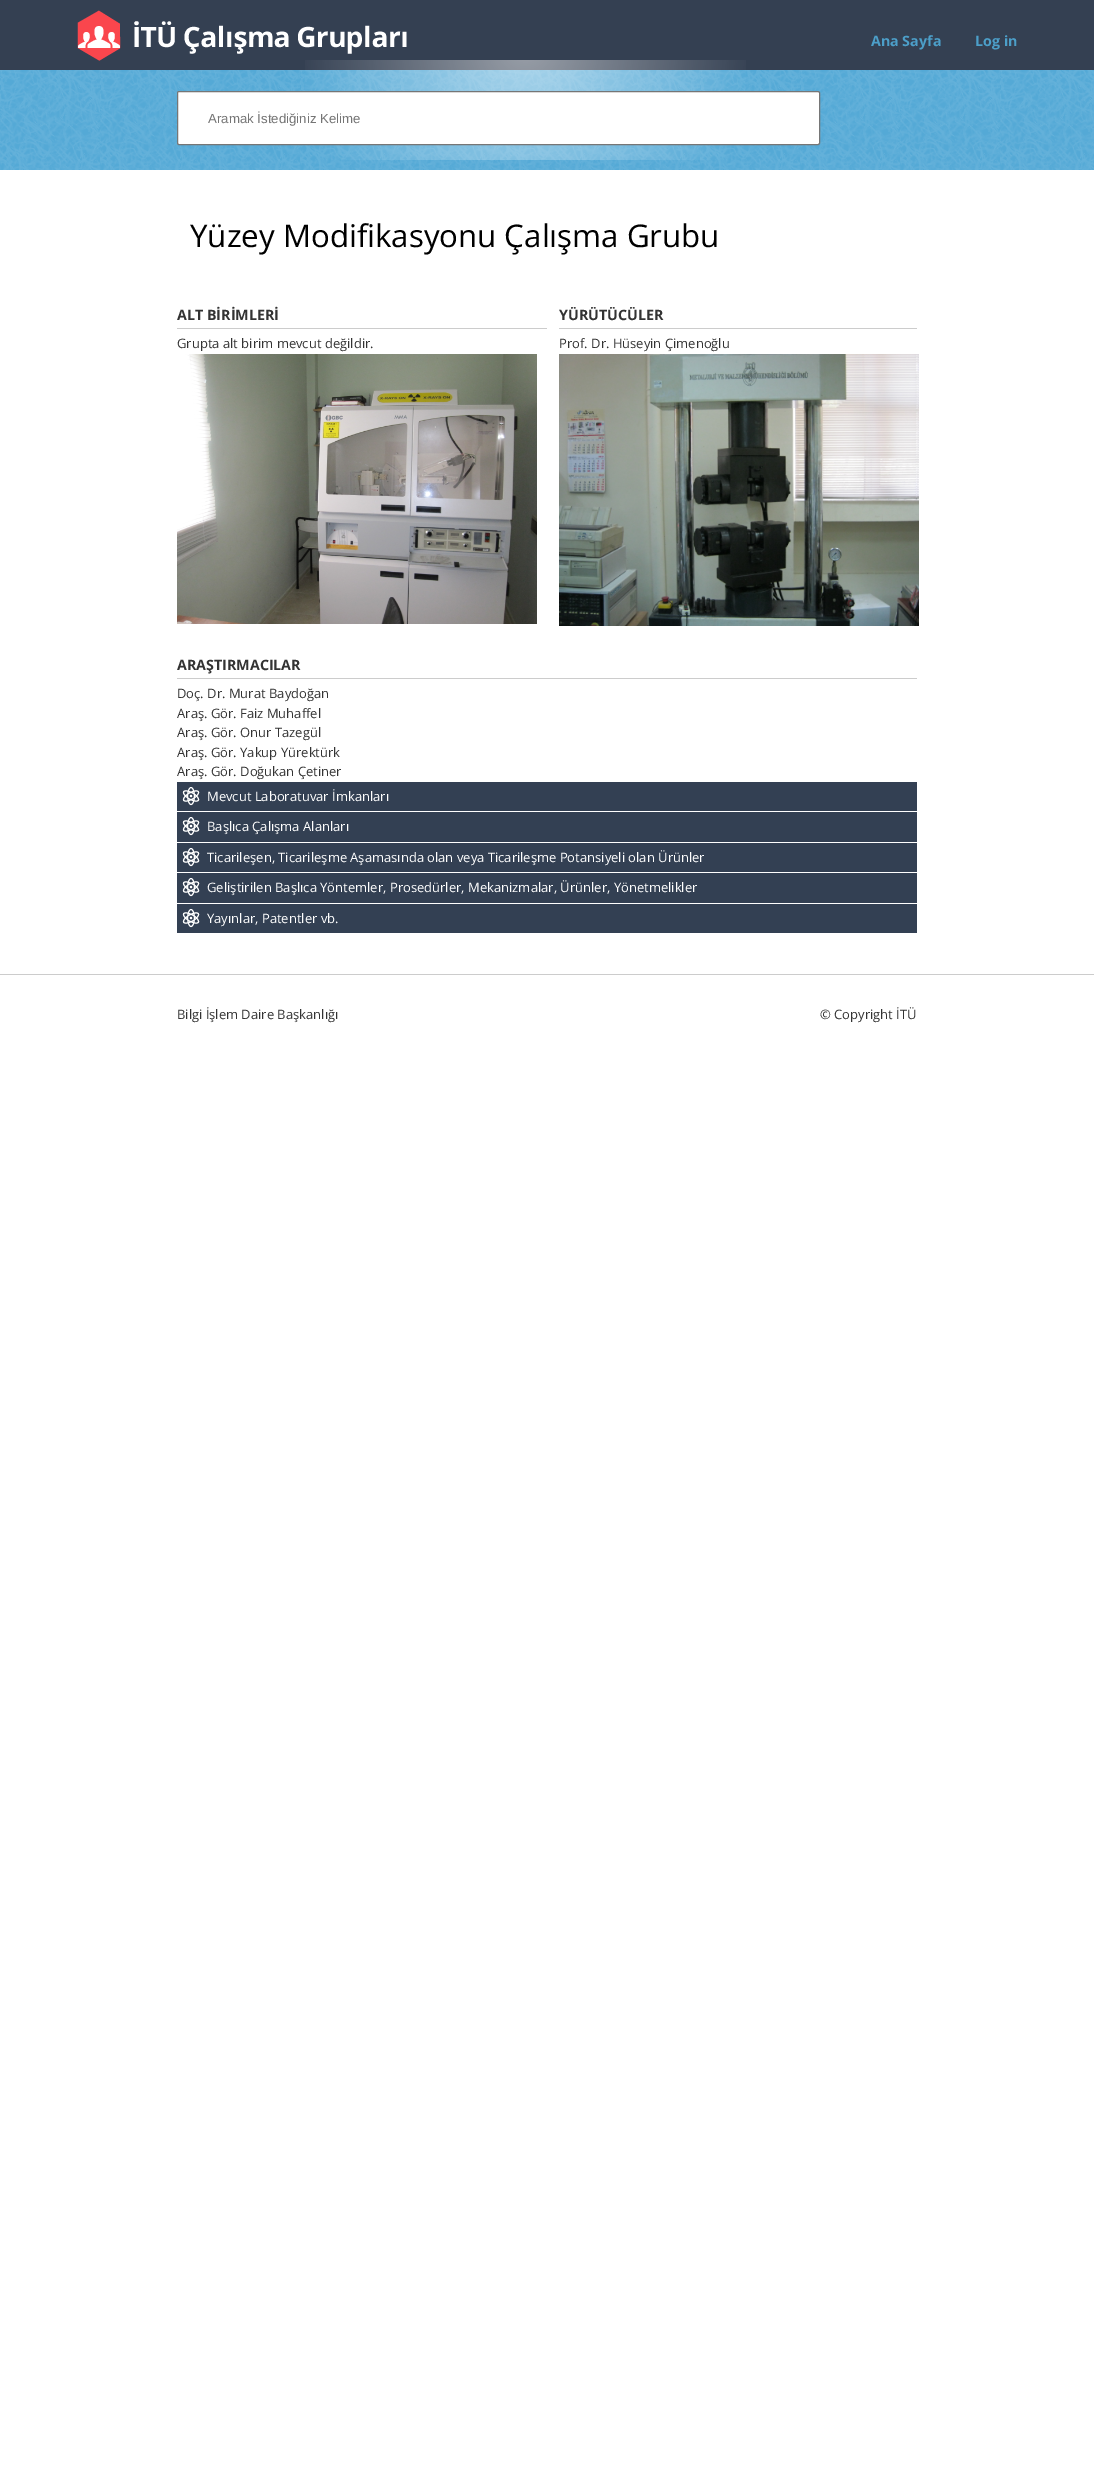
%!PS
<< /PageSize [1094 2465] >> setpagedevice
/f/fill load def
/s/stroke load def
/q/gsave load def
/Q_/grestore load def
/C { dup -16 bitshift 255 div exch dup -8 bitshift 255 and 255 div exch 255 and 255 div setrgbcolor } def
/F { [ exch dup neg 0 0 3 -1 roll 0 0 ] selectfont } def
/T { moveto show } def
/R { rectfill } def
/Q { 5 dict begin { /r /h /w /y /x } { exch def } forall
  x r add y moveto x w add y 2 copy h add r arct x w add y h add x 1 index r arct
  x y h add x y r arct x y 2 copy exch w add exch r arct closepath end } def
/I { 5 dict begin { /h /w /y /x /name } { exch def } forall
  gsave x y translate w h scale
  w h 8 [w 0 0 h 0 0] name (r) file false 3 colorimage grestore end } def
0 2465 translate 1 -1 scale
4 setmiterlimit
16#FFFFFF C
0 0 1094 2465 R
(1.rgb) 0 0 1094 170 I
(2.rgb) 305 60 441 100 I
(3.rgb) 77 10 330 51 I
/OpenSans-Bold 14.25 F
16#4C9FC9 C
(Ana Sayfa) 871 46 T
(Log in) 975 46 T
16#FFFFFF C
177.5 91.5 642 53 1.5 Q q f Q_
16#767676 C
s
/LiberationSans-Regular 13.25 F
16#757575 C
(Aramak İstediğiniz Kelime) 208 123 T
/OpenSans-Regular 31.25 F
16#000000 C
(Yüzey Modifikasyonu Çalışma Grubu) 190 247 T
16#CCCCCC C
177 328 370 1 R
/OpenSans-Bold 14.25 F
16#333333 C
(ALT BİRİMLERİ) 177 320 T
/OpenSans-Regular 13 F
(Grupta alt birim mevcut değildir.) 177 348 T
16#CCCCCC C
559 328 358 1 R
/OpenSans-Bold 14.25 F
16#333333 C
(YÜRÜTÜCÜLER) 559 320 T
/OpenSans-Regular 13 F
(Prof. Dr. Hüseyin Çimenoğlu) 559 348 T
(4.rgb) 177 354 360 270 I
(5.rgb) 559 354 360 272 I
16#CCCCCC C
177 678 740 1 R
/OpenSans-Bold 14.25 F
16#333333 C
(ARAŞTIRMACILAR) 177 670 T
/OpenSans-Regular 13 F
(Doç. Dr. Murat Baydoğan) 177 698 T
(Araş. Gör. Faiz Muhaffel) 177 718 T
(Araş. Gör. Onur Tazegül) 177 737 T
(Araş. Gör. Yakup Yürektürk) 177 757 T
(Araş. Gör. Doğukan Çetiner) 177 776 T
16#334053 C
177 782 740 29 R
(6.rgb) 182 787 18 19 I
16#FFFFFF C
(Mevcut Laboratuvar İmkanları) 207 801 T
16#334053 C
177 812 740 30 R
(6.rgb) 182 817 18 19 I
16#FFFFFF C
(Başlıca Çalışma Alanları) 207 831 T
16#334053 C
177 843 740 29 R
(6.rgb) 182 848 18 19 I
16#FFFFFF C
(Ticarileşen, Ticarileşme Aşamasında olan veya Ticarileşme Potansiyeli olan Ürünler) 207 862 T
16#334053 C
177 873 740 30 R
(6.rgb) 182 878 18 19 I
16#FFFFFF C
(Geliştirilen Başlıca Yöntemler, Prosedürler, Mekanizmalar, Ürünler, Yönetmelikler) 207 892 T
16#334053 C
177 904 740 29 R
(6.rgb) 182 909 18 19 I
16#FFFFFF C
(Yayınlar, Patentler vb.) 207 923 T
16#CCCCCC C
0 974 1094 1 R
16#333333 C
(Bilgi İşlem Daire Başkanlığı) 177 1019 T
(© Copyright İTÜ) 820 1019 T
showpage
